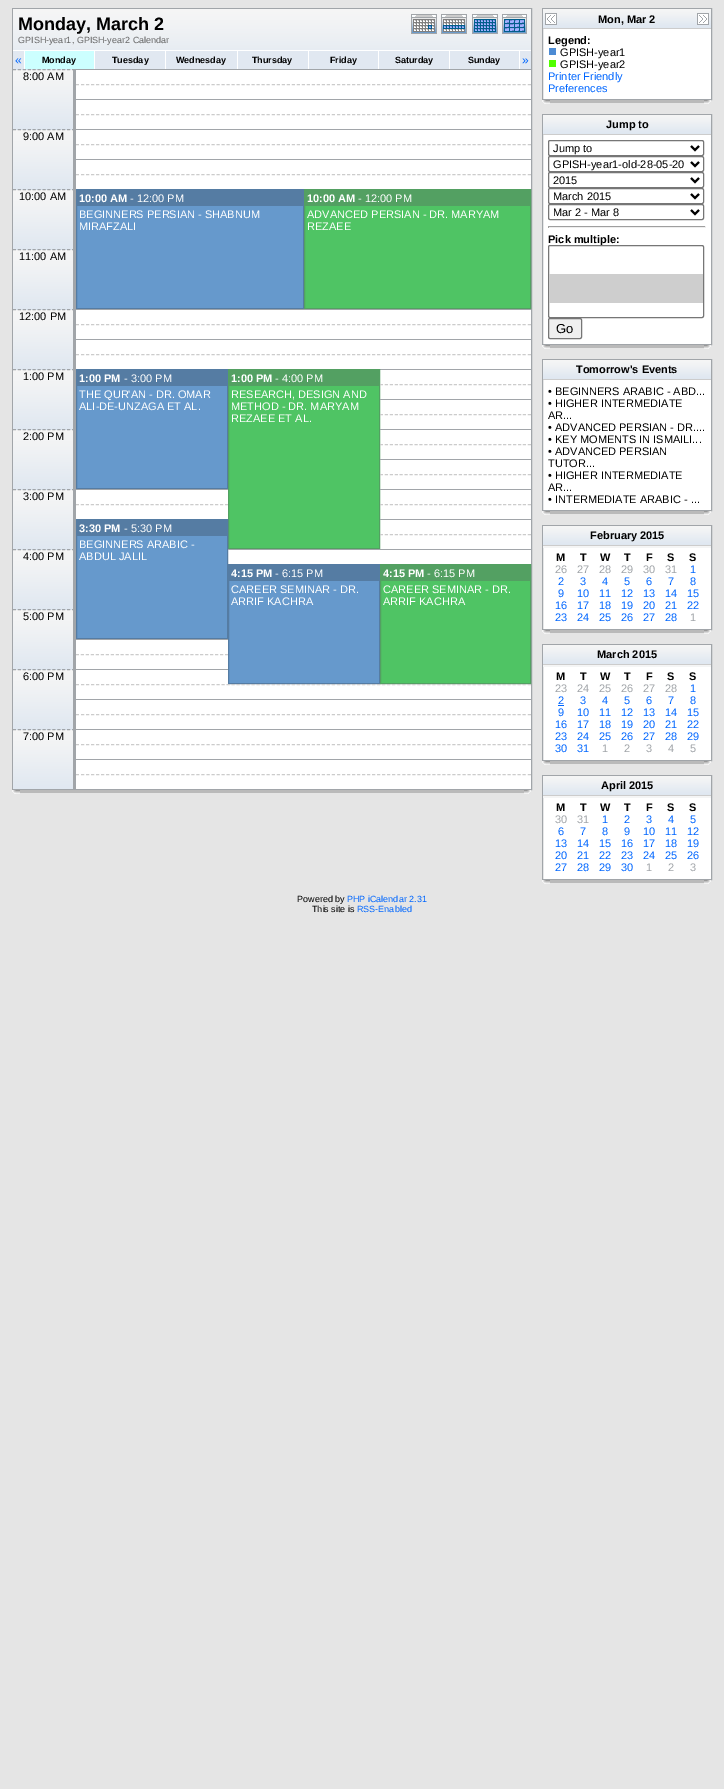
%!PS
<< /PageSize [724 1789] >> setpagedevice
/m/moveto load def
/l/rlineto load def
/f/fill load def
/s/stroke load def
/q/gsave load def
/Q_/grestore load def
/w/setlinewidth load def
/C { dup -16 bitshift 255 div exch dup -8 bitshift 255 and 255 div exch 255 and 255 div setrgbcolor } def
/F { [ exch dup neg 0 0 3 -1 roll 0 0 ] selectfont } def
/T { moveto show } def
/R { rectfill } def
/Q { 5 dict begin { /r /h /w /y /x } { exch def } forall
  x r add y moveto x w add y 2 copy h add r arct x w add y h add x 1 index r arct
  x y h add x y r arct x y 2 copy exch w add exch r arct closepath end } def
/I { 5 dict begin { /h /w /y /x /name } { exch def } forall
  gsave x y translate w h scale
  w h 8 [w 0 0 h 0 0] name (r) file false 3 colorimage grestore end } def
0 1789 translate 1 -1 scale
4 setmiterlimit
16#E5E5E5 C
0 0 724 1789 R
16#FFFFFF C
76 70 455 719 R
16#A1A5A9 C
12.5 8.5 519 781 rectstroke
(1.rgb) 13 9 398 41 I
/LiberationSans-Bold 18 F
16#000000 C
(Monday, March 2) 18 30 T
/LiberationSans-Regular 9 F
16#666666 C
(GPISH-year1, GPISH-year2 Calendar) 18 43 T
(2.rgb) 411 9 120 41 I
(3.rgb) 411 14 26 20 I
(4.rgb) 441 14 26 20 I
(5.rgb) 472 14 26 20 I
(6.rgb) 502 14 25 20 I
16#E1E8F1 C
13 51 11 18 R
16#FFFFFF C
13 50 518 1 R
/LiberationSans-Regular 12 F
16#0066FF C
(«) 15 64 T
16#CCFFFF C
25 51 69 18 R
16#FFFFFF C
24 50 1 19 R
/LiberationSans-Bold 9 F
16#000000 C
(Monday) 42 63 T
16#E1E8F1 C
95 51 70 18 R
16#FFFFFF C
94 50 1 19 R
16#000000 C
(Tuesday) 112 63 T
16#E1E8F1 C
166 51 71 18 R
16#FFFFFF C
165 50 1 19 R
16#000000 C
(Wednesday) 176 63 T
16#E1E8F1 C
238 51 70 18 R
16#FFFFFF C
237 50 1 19 R
16#000000 C
(Thursday) 252 63 T
16#E1E8F1 C
309 51 69 18 R
16#FFFFFF C
308 50 1 19 R
16#000000 C
(Friday) 330 63 T
16#E1E8F1 C
379 51 70 18 R
16#FFFFFF C
378 50 1 19 R
16#000000 C
(Saturday) 395 63 T
16#E1E8F1 C
450 51 69 18 R
16#FFFFFF C
449 50 1 19 R
16#000000 C
(Sunday) 468 63 T
16#E1E8F1 C
520 51 11 18 R
16#FFFFFF C
519 50 1 19 R
/LiberationSans-Regular 12 F
16#0066FF C
(») 522 64 T
16#A1A5A9 C
75 69 1 720 R
76 69 455 1 R
(7.rgb) 13 69 60 60 I
[3 1.92] 0 setdash
13 69.5 m 62 0 l s
73 69 2 60 R
/LiberationSans-Regular 11 F
16#000000 C
(8:00 AM) 23 80 T
16#CCCCCC C
[3 2.02] 0 setdash
76 84.5 m 455 0 l s
16#A1A5A9 C
76 99 455 1 R
16#CCCCCC C
76 114.5 m 455 0 l s
16#A1A5A9 C
76 129 455 1 R
(7.rgb) 13 129 60 60 I
[3 1.92] 0 setdash
13 129.5 m 62 0 l s
73 129 2 60 R
16#000000 C
(9:00 AM) 23 140 T
16#CCCCCC C
[3 2.02] 0 setdash
76 144.5 m 455 0 l s
16#A1A5A9 C
76 159 455 1 R
16#CCCCCC C
76 174.5 m 455 0 l s
(7.rgb) 13 189 60 60 I
16#A1A5A9 C
[3 1.92] 0 setdash
13 189.5 m 62 0 l s
73 189 2 60 R
16#000000 C
(10:00 AM) 19 200 T
16#6699CC C
77 206 226 102 R
16#557CA3 C
[] 0 setdash
76.5 189.5 227 119 rectstroke
77 190 226 16 R
/LiberationSans-Bold 11 F
16#FFFFFF C
(10:00 AM) 79 202 T
/LiberationSans-Regular 11 F
(- 12:00 PM) 130 202 T
(BEGINNERS PERSIAN - SHABNUM) 79 218 T
(MIRAFZALI) 79 230 T
16#4FC464 C
305 206 225 102 R
16#53A062 C
304.5 189.5 226 119 rectstroke
305 190 225 16 R
/LiberationSans-Bold 11 F
16#FFFFFF C
(10:00 AM) 307 202 T
/LiberationSans-Regular 11 F
(- 12:00 PM) 358 202 T
(ADVANCED PERSIAN - DR. MARYAM) 307 218 T
(REZAEE) 307 230 T
(7.rgb) 13 249 60 60 I
16#A1A5A9 C
[3 1.92] 0 setdash
13 249.5 m 62 0 l s
73 249 2 60 R
16#000000 C
(11:00 AM) 19 260 T
16#A1A5A9 C
76 309 455 1 R
(7.rgb) 13 309 60 60 I
13 309.5 m 62 0 l s
73 309 2 60 R
16#000000 C
(12:00 PM) 19 320 T
16#CCCCCC C
[3 2.02] 0 setdash
76 324.5 m 455 0 l s
16#A1A5A9 C
76 339 455 1 R
16#CCCCCC C
76 354.5 m 455 0 l s
16#A1A5A9 C
380 369 151 1 R
(7.rgb) 13 369 60 60 I
[3 1.92] 0 setdash
13 369.5 m 62 0 l s
73 369 2 60 R
16#000000 C
(1:00 PM) 23 380 T
16#6699CC C
77 386 150 102 R
16#557CA3 C
[] 0 setdash
76.5 369.5 151 119 rectstroke
77 370 150 16 R
/LiberationSans-Bold 11 F
16#FFFFFF C
(1:00 PM) 79 382 T
/LiberationSans-Regular 11 F
(- 3:00 PM) 124 382 T
(THE QUR'AN - DR. OMAR) 79 398 T
(ALI-DE-UNZAGA ET AL.) 79 410 T
16#4FC464 C
229 386 150 162 R
16#53A062 C
228.5 369.5 151 179 rectstroke
229 370 150 16 R
/LiberationSans-Bold 11 F
16#FFFFFF C
(1:00 PM) 231 382 T
/LiberationSans-Regular 11 F
(- 4:00 PM) 275 382 T
(RESEARCH, DESIGN AND) 231 398 T
(METHOD - DR. MARYAM) 231 410 T
(REZAEE ET AL.) 231 422 T
16#CCCCCC C
[3 1.93] 0 setdash
380 384.5 m 151 0 l s
16#A1A5A9 C
380 399 151 1 R
16#CCCCCC C
380 414.5 m 151 0 l s
16#A1A5A9 C
380 429 151 1 R
(7.rgb) 13 429 60 60 I
[3 1.92] 0 setdash
13 429.5 m 62 0 l s
73 429 2 60 R
16#000000 C
(2:00 PM) 23 440 T
16#CCCCCC C
[3 1.93] 0 setdash
380 444.5 m 151 0 l s
16#A1A5A9 C
380 459 151 1 R
16#CCCCCC C
380 474.5 m 151 0 l s
16#A1A5A9 C
76 489 152 1 R
380 489 151 1 R
(7.rgb) 13 489 60 60 I
[3 1.92] 0 setdash
13 489.5 m 62 0 l s
73 489 2 60 R
16#000000 C
(3:00 PM) 23 500 T
16#CCCCCC C
[3 1.97] 0 setdash
76 504.5 m 152 0 l s
[3 1.93] 0 setdash
380 504.5 m 151 0 l s
16#A1A5A9 C
380 519 151 1 R
16#6699CC C
77 536 150 102 R
16#557CA3 C
[] 0 setdash
76.5 519.5 151 119 rectstroke
77 520 150 16 R
/LiberationSans-Bold 11 F
16#FFFFFF C
(3:30 PM) 79 532 T
/LiberationSans-Regular 11 F
(- 5:30 PM) 124 532 T
(BEGINNERS ARABIC -) 79 548 T
(ABDUL JALIL) 79 560 T
16#CCCCCC C
[3 1.93] 0 setdash
380 534.5 m 151 0 l s
16#A1A5A9 C
228 549 303 1 R
(7.rgb) 13 549 60 60 I
[3 1.92] 0 setdash
13 549.5 m 62 0 l s
73 549 2 60 R
16#000000 C
(4:00 PM) 23 560 T
16#6699CC C
229 581 150 102 R
16#557CA3 C
[] 0 setdash
228.5 564.5 151 119 rectstroke
229 565 150 16 R
/LiberationSans-Bold 11 F
16#FFFFFF C
(4:15 PM) 231 577 T
/LiberationSans-Regular 11 F
(- 6:15 PM) 275 577 T
(CAREER SEMINAR - DR.) 231 593 T
(ARRIF KACHRA) 231 605 T
16#4FC464 C
381 581 149 102 R
16#53A062 C
380.5 564.5 150 119 rectstroke
381 565 149 16 R
/LiberationSans-Bold 11 F
16#FFFFFF C
(4:15 PM) 383 577 T
/LiberationSans-Regular 11 F
(- 6:15 PM) 427 577 T
(CAREER SEMINAR - DR.) 383 593 T
(ARRIF KACHRA) 383 605 T
(7.rgb) 13 609 60 60 I
16#A1A5A9 C
[3 1.92] 0 setdash
13 609.5 m 62 0 l s
73 609 2 60 R
16#000000 C
(5:00 PM) 23 620 T
16#A1A5A9 C
76 639 152 1 R
16#CCCCCC C
[3 1.97] 0 setdash
76 654.5 m 152 0 l s
16#A1A5A9 C
76 669 152 1 R
(7.rgb) 13 669 60 60 I
[3 1.92] 0 setdash
13 669.5 m 62 0 l s
73 669 2 60 R
16#000000 C
(6:00 PM) 23 680 T
16#CCCCCC C
[3 2.02] 0 setdash
76 684.5 m 455 0 l s
16#A1A5A9 C
76 699 455 1 R
16#CCCCCC C
76 714.5 m 455 0 l s
16#A1A5A9 C
76 729 455 1 R
(7.rgb) 13 729 60 60 I
[3 1.92] 0 setdash
13 729.5 m 62 0 l s
73 729 2 60 R
16#000000 C
(7:00 PM) 23 740 T
16#CCCCCC C
[3 2.02] 0 setdash
76 744.5 m 455 0 l s
16#A1A5A9 C
76 759 455 1 R
16#CCCCCC C
76 774.5 m 455 0 l s
(8.rgb) 12 790 8 4 I
16#BABABA C
20 790 504 3 R
(9.rgb) 524 790 7 4 I
16#FFFFFF C
543 29 168 70 R
16#A1A5A9 C
[] 0 setdash
542.5 8.5 169 91 rectstroke
(10.rgb) 543 9 25 20 I
(11.rgb) 545 13 12 12 I
(12.rgb) 568 9 118 20 I
/LiberationSans-Bold 11 F
16#000000 C
(Mon, Mar 2) 598 23 T
(10.rgb) 686 9 25 20 I
(13.rgb) 697 13 12 12 I
(Legend:) 548 44 T
16#4C8BD4 C
549 48 7 7 R
/LiberationSans-Regular 11 F
16#000000 C
(GPISH-year1) 560 56 T
16#51FF00 C
549 60 7 7 R
16#000000 C
(GPISH-year2) 560 68 T
16#0066FF C
(Printer Friendly) 548 80 T
(Preferences) 548 92 T
(8.rgb) 542 100 8 4 I
16#BABABA C
550 100 154 3 R
(9.rgb) 704 100 7 4 I
16#FFFFFF C
543 135 168 209 R
16#A1A5A9 C
542.5 114.5 169 230 rectstroke
(14.rgb) 543 115 168 20 I
/LiberationSans-Bold 11 F
16#000000 C
(Jump to) 606 128 T
16#767676 C
548.5 140.5 155 15 1.5 Q s
16#000000 C
2 w
691 146 m 4 4 l 4 -4 l s
/LiberationSans-Regular 11 F
(Jump to) 553 152 T
16#767676 C
1 w
548.5 156.5 155 15 1.5 Q s
16#000000 C
2 w
691 162 m 4 4 l 4 -4 l s
(GPISH-year1-old-28-05-20) 553 168 T
16#767676 C
1 w
548.5 172.5 155 15 1.5 Q s
16#000000 C
2 w
691 178 m 4 4 l 4 -4 l s
(2015) 553 184 T
16#767676 C
1 w
548.5 188.5 155 15 1.5 Q s
16#000000 C
2 w
691 194 m 4 4 l 4 -4 l s
(March 2015) 553 200 T
16#767676 C
1 w
548.5 204.5 155 15 1.5 Q s
16#000000 C
2 w
691 210 m 4 4 l 4 -4 l s
(Mar 2 - Mar 8) 553 216 T
16#9F9F9F C
548 226 158 1 R
16#EEEEEE C
705 226 1 2 R
548 227 158 1 R
16#9F9F9F C
548 226 1 2 R
/LiberationSans-Bold 11 F
16#000000 C
(Pick multiple:) 548 243 T
16#FFFFFF C
548.5 245.5 155 72 1.5 Q q f Q_
16#767676 C
1 w
s
16#CECECE C
549 274 154 29 R
16#EFEFEF C
548.5 318.5 33 20 1.5 Q q f Q_
16#767676 C
s
/LiberationSans-Regular 13 F
16#000000 C
(Go) 556 333 T
(8.rgb) 542 345 8 4 I
16#BABABA C
550 345 154 3 R
(9.rgb) 704 345 7 4 I
16#FFFFFF C
543 380 168 130 R
16#A1A5A9 C
542.5 359.5 169 151 rectstroke
(14.rgb) 543 360 168 20 I
/LiberationSans-Bold 11 F
16#000000 C
(Tomorrow's Events) 576 373 T
/LiberationSans-Regular 11 F
(• BEGINNERS ARABIC - ABD...) 548 395 T
(• HIGHER INTERMEDIATE) 548 407 T
(AR...) 548 419 T
(• ADVANCED PERSIAN - DR....) 548 431 T
(• KEY MOMENTS IN ISMAILI...) 548 443 T
(• ADVANCED PERSIAN) 548 455 T
(TUTOR...) 548 467 T
(• HIGHER INTERMEDIATE) 548 479 T
(AR...) 548 491 T
(• INTERMEDIATE ARABIC - ...) 548 503 T
(8.rgb) 542 511 8 4 I
16#BABABA C
550 511 154 3 R
(9.rgb) 704 511 7 4 I
16#FFFFFF C
543 548 168 81 R
16#A1A5A9 C
542.5 525.5 169 104 rectstroke
(15.rgb) 543 526 168 22 I
/LiberationSans-Bold 11 F
16#000000 C
(February 2015) 590 539 T
(M) 556 561 T
(T) 580 561 T
(W) 600 561 T
(T) 624 561 T
(F) 646 561 T
(S) 667 561 T
(S) 689 561 T
/LiberationSans-Regular 11 F
16#A1A5A9 C
(26) 555 573 T
(27) 577 573 T
(28) 599 573 T
(29) 621 573 T
(30) 643 573 T
(31) 665 573 T
16#0066FF C
(1) 690 573 T
(2) 558 585 T
(3) 580 585 T
(4) 602 585 T
(5) 624 585 T
(6) 646 585 T
(7) 668 585 T
(8) 690 585 T
(9) 558 597 T
(10) 577 597 T
(11) 599 597 T
(12) 621 597 T
(13) 643 597 T
(14) 665 597 T
(15) 687 597 T
(16) 555 609 T
(17) 577 609 T
(18) 599 609 T
(19) 621 609 T
(20) 643 609 T
(21) 665 609 T
(22) 687 609 T
(23) 555 621 T
(24) 577 621 T
(25) 599 621 T
(26) 621 621 T
(27) 643 621 T
(28) 665 621 T
16#A1A5A9 C
(1) 690 621 T
(8.rgb) 542 630 8 4 I
16#BABABA C
550 630 154 3 R
(9.rgb) 704 630 7 4 I
16#FFFFFF C
543 667 168 93 R
16#A1A5A9 C
542.5 644.5 169 116 rectstroke
(15.rgb) 543 645 168 22 I
/LiberationSans-Bold 11 F
16#000000 C
(March 2015) 597 658 T
(M) 556 680 T
(T) 580 680 T
(W) 600 680 T
(T) 624 680 T
(F) 646 680 T
(S) 667 680 T
(S) 689 680 T
/LiberationSans-Regular 11 F
16#A1A5A9 C
(23) 555 692 T
(24) 577 692 T
(25) 599 692 T
(26) 621 692 T
(27) 643 692 T
(28) 665 692 T
16#0066FF C
(1) 690 692 T
(2) 558 704 T
558 705 6 1 R
(3) 580 704 T
(4) 602 704 T
(5) 624 704 T
(6) 646 704 T
(7) 668 704 T
(8) 690 704 T
(9) 558 716 T
(10) 577 716 T
(11) 599 716 T
(12) 621 716 T
(13) 643 716 T
(14) 665 716 T
(15) 687 716 T
(16) 555 728 T
(17) 577 728 T
(18) 599 728 T
(19) 621 728 T
(20) 643 728 T
(21) 665 728 T
(22) 687 728 T
(23) 555 740 T
(24) 577 740 T
(25) 599 740 T
(26) 621 740 T
(27) 643 740 T
(28) 665 740 T
(29) 687 740 T
(30) 555 752 T
(31) 577 752 T
16#A1A5A9 C
(1) 602 752 T
(2) 624 752 T
(3) 646 752 T
(4) 668 752 T
(5) 690 752 T
(8.rgb) 542 761 8 4 I
16#BABABA C
550 761 154 3 R
(9.rgb) 704 761 7 4 I
16#FFFFFF C
543 798 168 81 R
16#A1A5A9 C
542.5 775.5 169 104 rectstroke
(15.rgb) 543 776 168 22 I
/LiberationSans-Bold 11 F
16#000000 C
(April 2015) 601 789 T
(M) 556 811 T
(T) 580 811 T
(W) 600 811 T
(T) 624 811 T
(F) 646 811 T
(S) 667 811 T
(S) 689 811 T
/LiberationSans-Regular 11 F
16#A1A5A9 C
(30) 555 823 T
(31) 577 823 T
16#0066FF C
(1) 602 823 T
(2) 624 823 T
(3) 646 823 T
(4) 668 823 T
(5) 690 823 T
(6) 558 835 T
(7) 580 835 T
(8) 602 835 T
(9) 624 835 T
(10) 643 835 T
(11) 665 835 T
(12) 687 835 T
(13) 555 847 T
(14) 577 847 T
(15) 599 847 T
(16) 621 847 T
(17) 643 847 T
(18) 665 847 T
(19) 687 847 T
(20) 555 859 T
(21) 577 859 T
(22) 599 859 T
(23) 621 859 T
(24) 643 859 T
(25) 665 859 T
(26) 687 859 T
(27) 555 871 T
(28) 577 871 T
(29) 599 871 T
(30) 621 871 T
16#A1A5A9 C
(1) 646 871 T
(2) 668 871 T
(3) 690 871 T
(8.rgb) 542 880 8 4 I
16#BABABA C
550 880 154 3 R
(9.rgb) 704 880 7 4 I
/LiberationSans-Regular 9 F
16#000000 C
(Powered by) 297 902 T
16#0066FF C
(PHP iCalendar 2.31) 347 902 T
16#000000 C
(This site is) 312 912 T
16#0066FF C
(RSS-Enabled) 357 912 T
showpage
